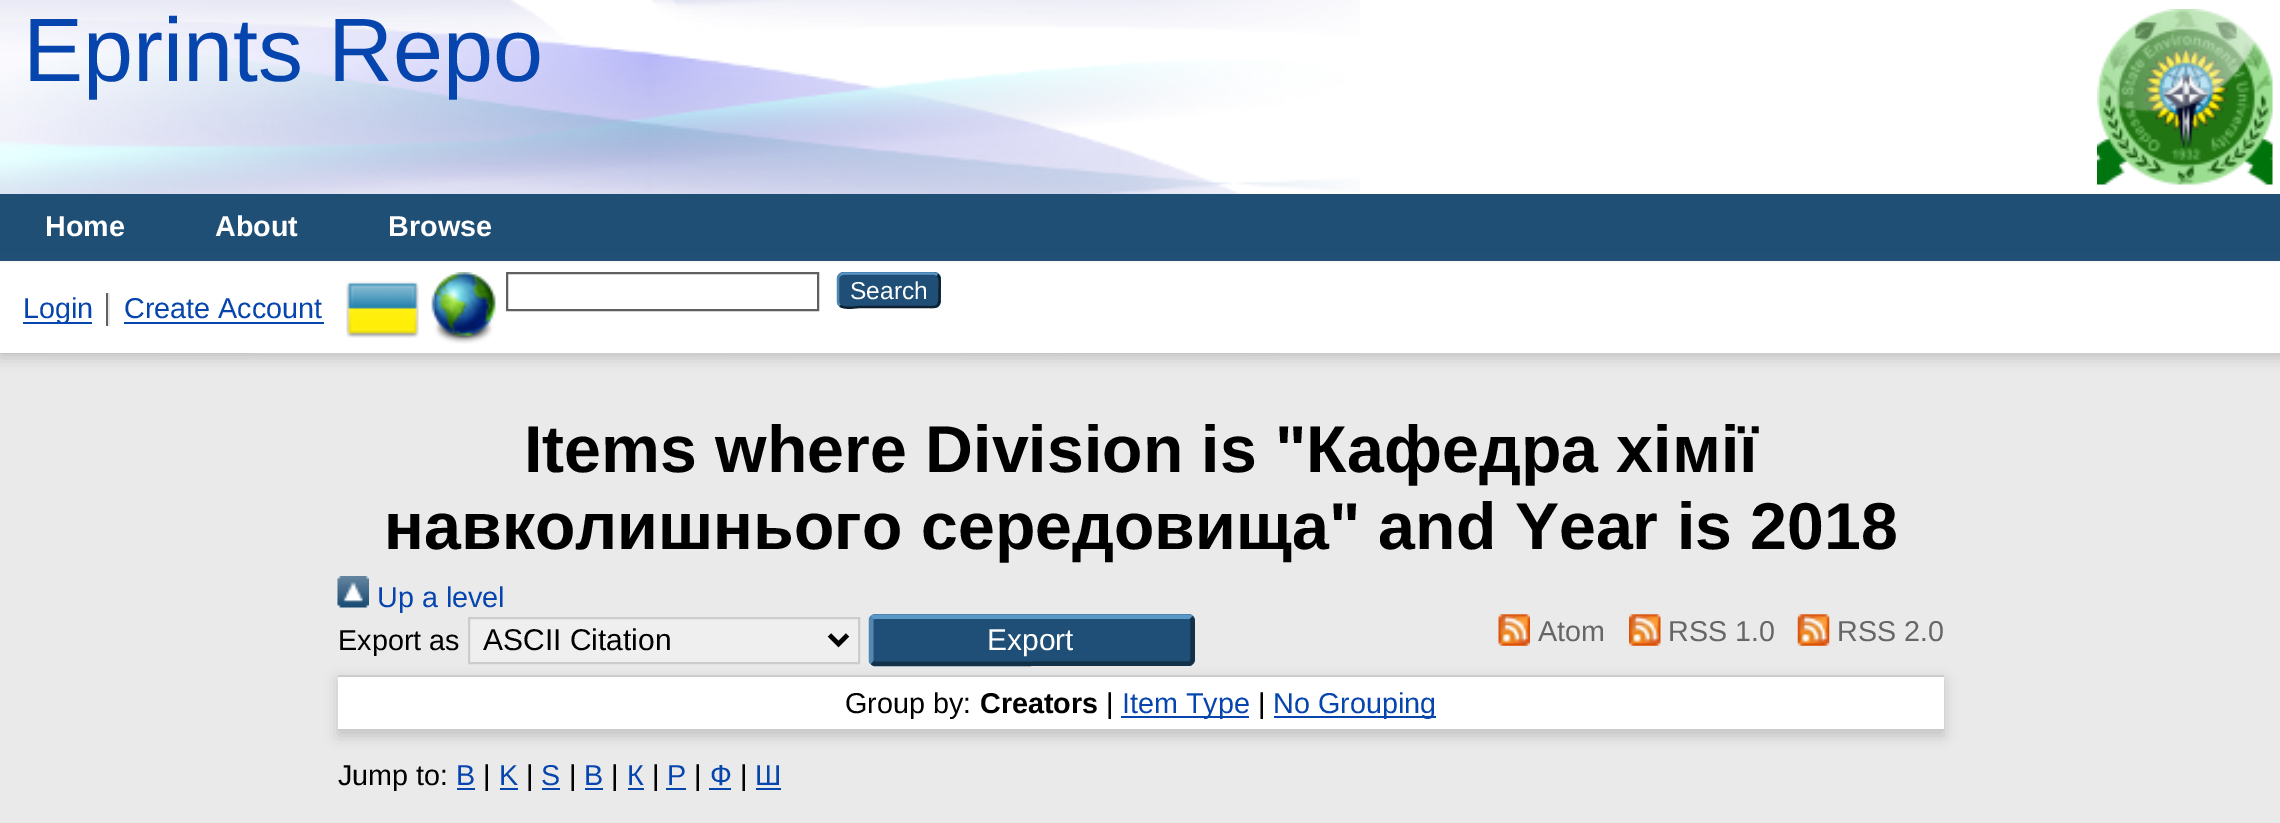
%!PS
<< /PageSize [2280 823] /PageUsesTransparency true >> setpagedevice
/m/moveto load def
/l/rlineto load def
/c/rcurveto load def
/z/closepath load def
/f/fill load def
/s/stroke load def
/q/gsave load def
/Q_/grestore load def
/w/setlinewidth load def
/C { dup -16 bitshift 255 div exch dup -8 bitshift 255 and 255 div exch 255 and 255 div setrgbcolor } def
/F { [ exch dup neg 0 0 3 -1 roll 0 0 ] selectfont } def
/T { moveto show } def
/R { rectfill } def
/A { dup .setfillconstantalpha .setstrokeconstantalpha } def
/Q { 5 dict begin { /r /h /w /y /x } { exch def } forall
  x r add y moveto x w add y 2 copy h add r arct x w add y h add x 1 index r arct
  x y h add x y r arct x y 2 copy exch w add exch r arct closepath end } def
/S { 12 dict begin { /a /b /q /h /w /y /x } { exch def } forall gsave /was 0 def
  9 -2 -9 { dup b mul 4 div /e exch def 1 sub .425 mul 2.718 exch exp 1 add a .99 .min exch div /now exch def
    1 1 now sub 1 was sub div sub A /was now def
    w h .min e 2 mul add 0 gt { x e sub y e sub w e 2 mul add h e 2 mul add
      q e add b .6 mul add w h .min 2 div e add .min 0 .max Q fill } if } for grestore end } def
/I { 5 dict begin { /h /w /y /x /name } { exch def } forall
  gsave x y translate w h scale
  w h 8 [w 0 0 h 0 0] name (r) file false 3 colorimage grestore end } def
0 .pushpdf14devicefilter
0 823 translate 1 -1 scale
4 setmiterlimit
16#EAEAEA C
0 0 2280 823 R
16#FFFFFF C
0 0 2280 194 R
(1.rgb) 0 0 1360 354 I
/LiberationSans-Regular 90 F
16#0645AD C
(Eprints Repo) 23 81 T
(2.rgb) 2097 9 176 176 I
16#204F76 C
0 194 2280 67 R
16#FFFFFF C
0 261 2280 2 R
/LiberationSans-Bold 28.75 F
(Home) 45 236 T
(About) 215 236 T
(Browse) 388 236 T
16#646464 C
0 268 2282 90 0 7 .3 S
16#FFFFFF C
0 263 2280 90 R
(3.rgb) 346 281 73 57 I
(4.rgb) 431 272 65 72 I
16#606060 C
2 w
507 273 311 37 rectstroke
16#1F4F76 C
837 272 104 36 7 Q f
16#5B97C7 C
2.2 w
840 275 m 3 -1.5 l 91.5 0 l 3 1.5 l s
16#0D2131 C
937.5 275 m 3.5 3 2 11.5 2 15 c 0 20 .5 17 -20.5 17 c -60 0 l -1 0 -15 2.5 -19 -1.5 c s
16#5287B3 C
840 305.5 m -1.5 -1 -2 -2.5 -2 -4 c 0 -22.5 l 0 -1.5 .5 -3 2 -4 c s
/LiberationSans-Regular 24.5 F
16#FFFFFF C
(Search) 850 299 T
16#0645AD C
23 322 69 2 R
/LiberationSans-Regular 28.75 F
(Login) 23 318 T
16#606060 C
106 293 2 33 R
16#0645AD C
(Create Account) 124 318 T
16#E8E8E8 C
108 293 2 33 R
16#0645AD C
124 322 200 2 R
/LiberationSans-Bold 66.25 F
16#000000 C
(Items where Division is "Кафедра хімії) 524 472 T
(навколишнього середовища" and Year is 2018) 384 549 T
(5.rgb) 337 576 32 32 I
/LiberationSans-Regular 28.75 F
16#0645AD C
(Up a level) 377 607 T
16#000000 C
(Export as) 338 650 T
16#646464 C
338 680 1606 56 0 7 .3 S
16#EFEFEF C
469 618 m 390 0 l 0 45 l -390 0 l z q f Q_
16#CCCCCC C
2 w
s
16#000000 C
4.5 w
829.5 635 m 9 9 l 9 -9 l s
/LiberationSans-Regular 30 F
(ASCII Citation) 483 650 T
16#1F4F76 C
869 614 326 52 7 Q f
16#5B97C7 C
872 618 m 1 -1 2 -1.5 3 -1.5 c 313 0 l 1 0 2.5 .5 3 1.5 c s
16#13324A C
1191 618 m 2.5 2 1.5 7 1.5 9.5 c 0 25.5 l 0 3 1.5 9 -3 10.5 c -314.5 .5 l -3 -1.5 l s
16#5287B3 C
872 662.5 m -1 -1 -1 -2 -1 -3.5 c 0 -38 l 0 -1 0 -2.5 1 -3 c s
16#FFFFFF C
(Export) 987 650 T
(6.rgb) 1498 614 32 32 I
/LiberationSans-Regular 28.75 F
16#666666 C
(Atom) 1538 641 T
(7.rgb) 1629 614 32 32 I
(RSS 1.0) 1668 641 T
(8.rgb) 1797 614 33 32 I
(RSS 2.0) 1837 641 T
16#FFFFFF C
338 677 1606 52 R
16#CCCCCC C
338 675 1606 2 R
338 729 1606 2 R
16#000000 C
(Group by:) 845 713 T
/LiberationSans-Bold 28.75 F
(Creators) 980 713 T
/LiberationSans-Regular 28.75 F
(|) 1106 713 T
16#0645AD C
1121 716 128 2 R
(Item Type) 1122 713 T
16#000000 C
(|) 1258 713 T
16#0645AD C
1274 716 162 2 R
(No Grouping) 1273 713 T
16#000000 C
(Jump to:) 338 785 T
16#0645AD C
(B) 456 785 T
457 788 18 2 R
16#000000 C
(|) 483 785 T
16#0645AD C
(K) 499 785 T
500 788 18 2 R
16#000000 C
(|) 526 785 T
16#0645AD C
(S) 541 785 T
542 788 18 2 R
16#000000 C
(|) 569 785 T
16#0645AD C
(В) 584 785 T
585 788 18 2 R
16#000000 C
(|) 611 785 T
16#0645AD C
(К) 627 785 T
628 788 16 2 R
16#000000 C
(|) 652 785 T
16#0645AD C
(Р) 667 785 T
666 788 20 2 R
16#000000 C
(|) 694 785 T
16#0645AD C
(Ф) 710 785 T
709 788 22 2 R
16#000000 C
(|) 740 785 T
16#0645AD C
(Ш) 755 785 T
756 788 25 2 R
.poppdf14devicefilter showpage
